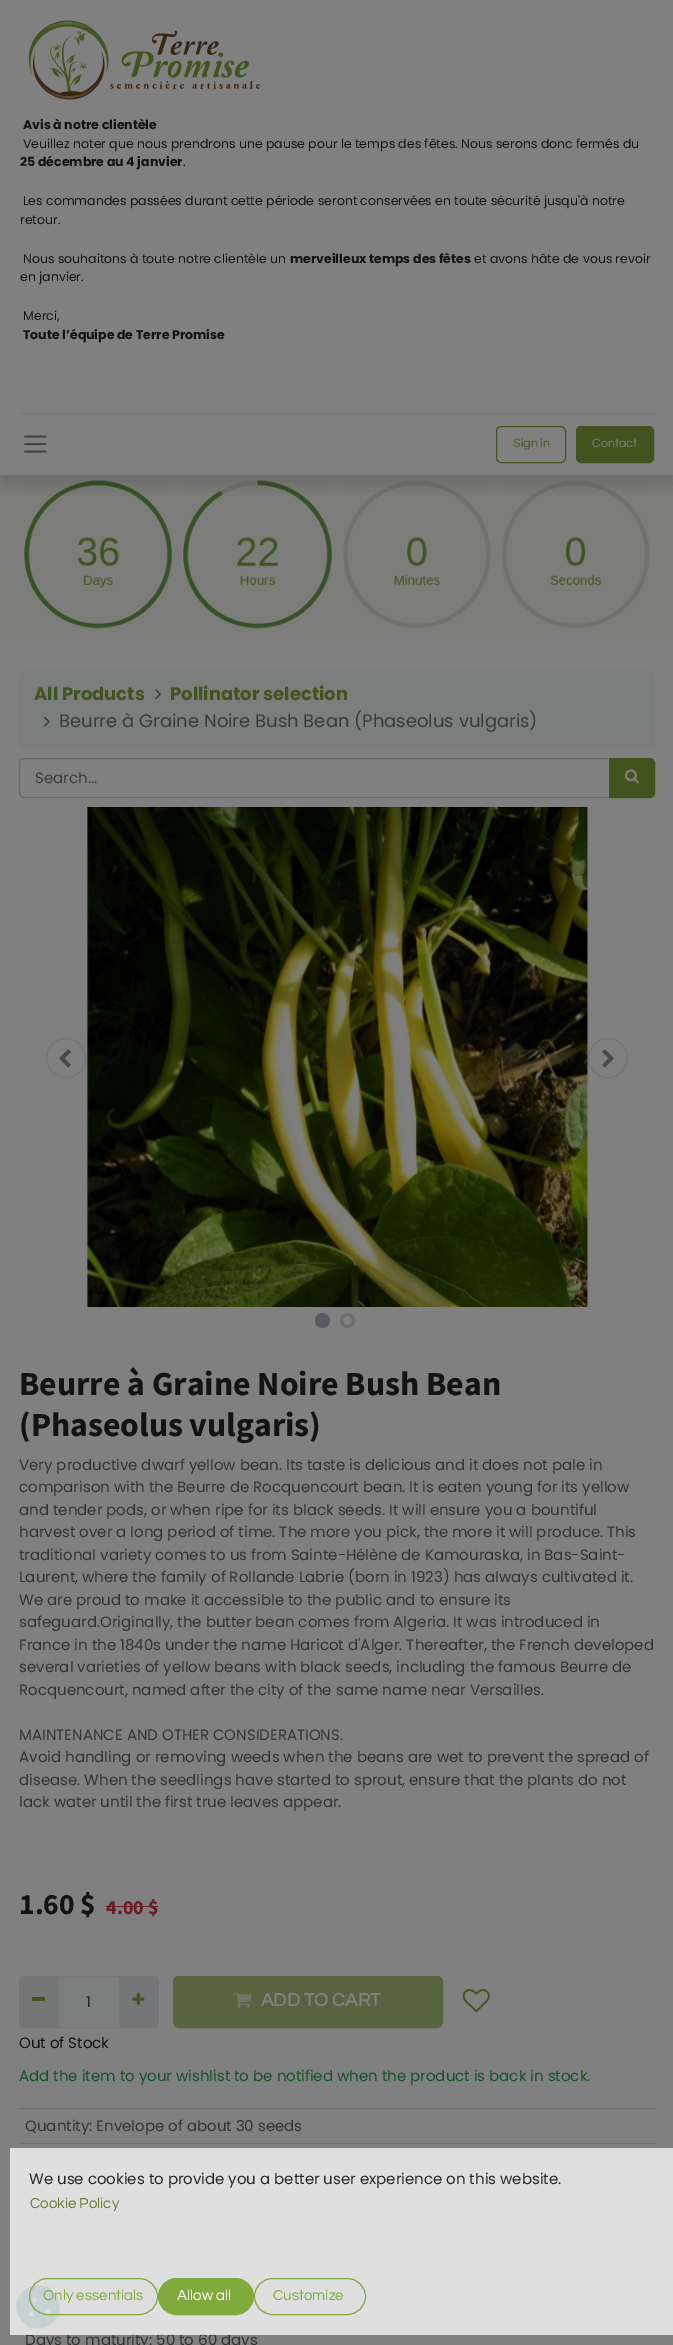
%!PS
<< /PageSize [673 2345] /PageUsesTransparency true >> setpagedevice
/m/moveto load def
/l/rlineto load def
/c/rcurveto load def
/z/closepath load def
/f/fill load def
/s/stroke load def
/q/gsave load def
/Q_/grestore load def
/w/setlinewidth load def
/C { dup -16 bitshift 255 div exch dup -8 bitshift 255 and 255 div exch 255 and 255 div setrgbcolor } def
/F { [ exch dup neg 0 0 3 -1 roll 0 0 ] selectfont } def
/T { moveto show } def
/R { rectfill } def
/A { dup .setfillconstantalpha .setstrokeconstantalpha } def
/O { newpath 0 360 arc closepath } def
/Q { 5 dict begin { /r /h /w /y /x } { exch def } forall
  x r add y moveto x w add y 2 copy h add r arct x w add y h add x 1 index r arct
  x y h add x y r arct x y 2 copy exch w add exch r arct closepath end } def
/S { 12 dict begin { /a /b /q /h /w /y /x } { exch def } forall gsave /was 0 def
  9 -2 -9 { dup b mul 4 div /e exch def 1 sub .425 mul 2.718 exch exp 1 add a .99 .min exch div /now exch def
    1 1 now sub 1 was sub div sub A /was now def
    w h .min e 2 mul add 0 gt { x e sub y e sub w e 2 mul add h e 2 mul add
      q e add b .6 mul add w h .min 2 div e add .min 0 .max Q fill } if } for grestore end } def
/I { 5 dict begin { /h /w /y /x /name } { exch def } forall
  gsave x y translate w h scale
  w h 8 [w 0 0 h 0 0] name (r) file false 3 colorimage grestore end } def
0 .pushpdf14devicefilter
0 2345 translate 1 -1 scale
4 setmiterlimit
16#808080 C
0 0 673 2345 R
16#7D7D7B C
0 475 673 165 R
(3.rgb) 24 480 149 149 I
(4.rgb) 183 480 149 149 I
(5.rgb) 343 480 148 149 I
(6.rgb) 501 480 149 149 I
q
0 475 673 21 rectclip
16#000000 C
0 10 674 475 0 10 .15 S
Q_
(1.rgb) 28 20 233 80 I
/Poppins-Bold 12.5 F
16#111315 C
(Avis à notre clientèle) 23 129 T
/Poppins-Regular 12.5 F
(Veuillez noter que nous prendrons une pause pour le temps des fêtes. Nous serons donc fermés du) 23 148 T
/Poppins-Bold 12.5 F
(25 décembre au 4 janvier) 20 166 T
/Poppins-Regular 12.5 F
(.) 183 166 T
(Les commandes passées durant cette période seront conservées en toute sécurité jusqu'à notre) 23 205 T
(retour.) 20 224 T
(Nous souhaitons à toute notre clientèle un) 23 263 T
/Poppins-Bold 12.5 F
(merveilleux temps des fêtes) 290 263 T
/Poppins-Regular 12.5 F
(et avons hâte de vous revoir) 474 263 T
(en janvier.) 20 281 T
(Merci,) 23 320 T
/Poppins-Bold 12.5 F
(Toute l’équipe de Terre Promise) 23 339 T
16#757678 C
20 413 634 1 R
(2.rgb) 24 435 23 18 I
16#40551E C
496.5 426.5 69 36 4.5 Q s
/Questrial-Regular 12.5 F
(Sign in) 513 447 T
576.5 426.5 77 36 4.5 Q q f Q_
s
16#808080 C
(Contact) 592 447 T
16#7C7D7D C
19 670 636 78 5 Q f
/Poppins-Bold 18 F
16#40551E C
(All Products) 34 700 T
(7.rgb) 155 689 6 11 I
(Pollinator selection) 170 700 T
(8.rgb) 43 716 7 11 I
/Poppins-Regular 18 F
16#363B3F C
(Beurre à Graine Noire Bush Bean \(Phaseolus vulgaris\)) 59 727 T
16#676A6D C
24 758.5 m 585.5 0 l 0 39 l -585.5 0 l -2.5 0 -4.5 -2 -4.5 -4.5 c 0 -30 l 0 -2.5 2 -4.5 4.5 -4.5 c z s
/Poppins-Regular 15 F
16#363B3F C
(Search...) 35 783 T
16#40551E C
609.5 758.5 m 40.5 0 l 2.5 0 4.5 2 4.5 4.5 c 0 30 l 0 2.5 -2 4.5 -4.5 4.5 c -40.5 0 l z q f Q_
s
(9.rgb) 625 769 14 15 I
16#747577 C
66 1058 19.5 O s
(10.rgb) 59 1049 12 19 I
(11.rgb) 87 807 502 500 I
0.5 A
16#808080 C
608 1058 20 O f
16#676A6D C
608 1058 19.5 O s
1 A
(12.rgb) 602 1049 12 19 I
16#575B5F C
322.5 1320.5 6 O q f Q_
3 w
s
16#6B6D6F C
347.5 1320.5 6 O s
/SourceSansPro-Bold 33.75 F
16#111315 C
(Beurre à Graine Noire Bush Bean) 19 1395 T
(\(Phaseolus vulgaris\)) 19 1436 T
/Poppins-Regular 15 F
16#323335 C
(Very productive dwarf yellow bean. Its taste is delicious and it does not pale in) 19 1470 T
(comparison with the Beurre de Rocquencourt bean. It is eaten young for its yellow) 19 1492 T
(and tender pods, or when ripe for its black seeds. It will ensure you a bountiful) 19 1515 T
(harvest over a long period of time. The more you pick, the more it will produce. This) 19 1537 T
(traditional variety comes to us from Sainte-Hélène de Kamouraska, in Bas-Saint-) 19 1560 T
(Laurent, where the family of Rollande Labrie \(born in 1923\) has always cultivated it.) 19 1582 T
(We are proud to make it accessible to the public and to ensure its) 19 1605 T
(safeguard.Originally, the butter bean comes from Algeria. It was introduced in) 19 1627 T
(France in the 1840s under the name Haricot d'Alger. Thereafter, the French developed) 19 1650 T
(several varieties of yellow beans with black seeds, including the famous Beurre de) 19 1672 T
(Rocquencourt, named after the city of the same name near Versailles.) 19 1695 T
(MAINTENANCE AND OTHER CONSIDERATIONS.) 19 1740 T
(Avoid handling or removing weeds when the beans are wet to prevent the spread of) 19 1762 T
(disease. When the seedlings have started to sprout, ensure that the plants do not) 19 1785 T
(lack water until the first true leaves appear.) 19 1807 T
/SourceSansPro-Bold 29.5 F
16#111315 C
(1.60 $) 19 1914 T
/SourceSansPro-Bold 20 F
16#6E1B23 C
(4.00 $) 106 1914 T
106 1906 52 1 R
16#7C7D7D C
59 1978 60 48 R
16#757678 C
1 w
58.5 1976.5 61 51 rectstroke
24 1976 m 35 0 l 0 52 l -35 0 l -3 0 -5 -2 -5 -5 c 0 -42 l 0 -3 2 -5 5 -5 c z f
16#40551E C
32 1997 13 4 R
/Poppins-Regular 15 F
16#25282C C
(1) 86 2007 T
16#757678 C
119 1976 m 35 0 l 3 0 5 2 5 5 c 0 42 l 0 3 -2 5 -5 5 c -35 0 l z f
(13.rgb) 132 1993 13 12 I
16#566440 C
173.5 1976.5 269 51 5.5 Q q f Q_
s
(14.rgb) 233 1992 19 16 I
/Questrial-Bold 18.75 F
16#808080 C
(ADD TO CART) 261 2006 T
(15.rgb) 462 1989 28 24 I
/Poppins-Regular 15 F
16#111315 C
(Out of Stock) 19 2048 T
16#145423 C
(Add the item to your wishlist to be notified when the product is back in stock.) 19 2081 T
16#6F7173 C
19 2108 637 1 R
16#323335 C
(Quantity: Envelope of about 30 seeds) 25 2131 T
16#6F7173 C
19 2143 637 1 R
19 2179 637 1 R
19 2214 637 1 R
19 2250 637 1 R
19 2286 637 1 R
19 2321 637 1 R
16#323335 C
(Days to maturity: 50 to 60 days) 25 2345 T
(16.rgb) 16 2285 45 44 I
0.75 A
16#FFFFFF C
10 2148 663 187 R
1 A
16#25282C C
(We use cookies to provide you a better user experience on this website.) 29 2184 T
/Questrial-Regular 15 F
16#5D7D2C C
(Cookie Policy) 30 2208 T
16#7FAA3C C
29.5 2278.5 128 36 18 Q s
(Only essentials) 43 2300 T
158.5 2278.5 95 36 18 Q q f Q_
s
16#FFFFFF C
(Allow all) 177 2300 T
16#7FAA3C C
254.5 2278.5 111 36 18 Q s
(Customize) 273 2300 T
.poppdf14devicefilter showpage
